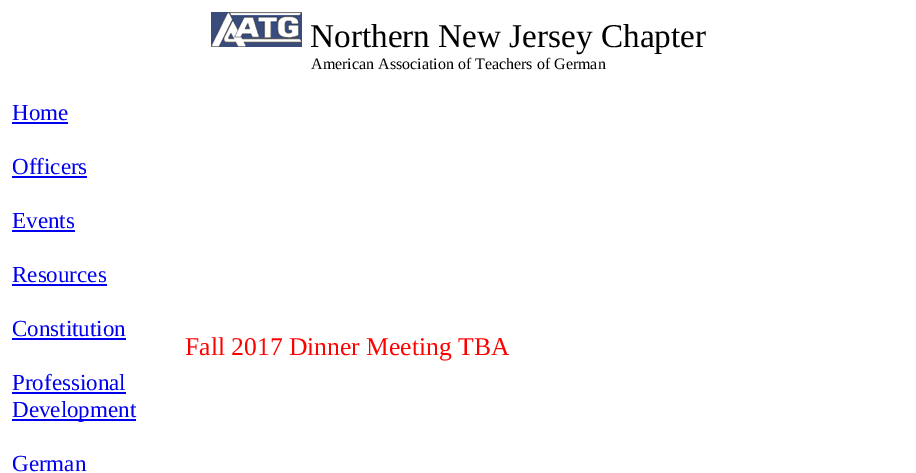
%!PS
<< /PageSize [916 473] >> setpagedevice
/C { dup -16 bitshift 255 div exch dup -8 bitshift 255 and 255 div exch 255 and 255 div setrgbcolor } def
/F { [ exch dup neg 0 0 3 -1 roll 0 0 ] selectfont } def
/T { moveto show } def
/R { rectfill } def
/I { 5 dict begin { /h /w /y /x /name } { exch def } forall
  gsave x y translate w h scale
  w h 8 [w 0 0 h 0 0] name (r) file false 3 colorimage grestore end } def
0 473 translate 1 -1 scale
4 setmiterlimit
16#FFFFFF C
0 0 916 473 R
(1.rgb) 211 12 91 35 I
/LiberationSerif-Regular 33.25 F
16#000000 C
(Northern New Jersey Chapter) 310 47 T
/LiberationSerif-Regular 16 F
(American Association of Teachers of German) 311 69 T
/LiberationSerif-Regular 23 F
16#0000EE C
(Home) 12 120 T
12 122 56 2 R
(Officers) 12 174 T
12 176 75 2 R
(Events) 12 228 T
12 230 63 2 R
(Resources) 12 282 T
12 284 95 2 R
(Constitution) 12 336 T
12 338 114 2 R
(Professional) 12 390 T
12 392 114 2 R
12 419 124 2 R
(Development) 12 417 T
(German) 12 471 T
/LiberationSerif-Regular 25.6 F
16#FF0000 C
(Fall 2017 Dinner Meeting TBA) 185 355 T
showpage
